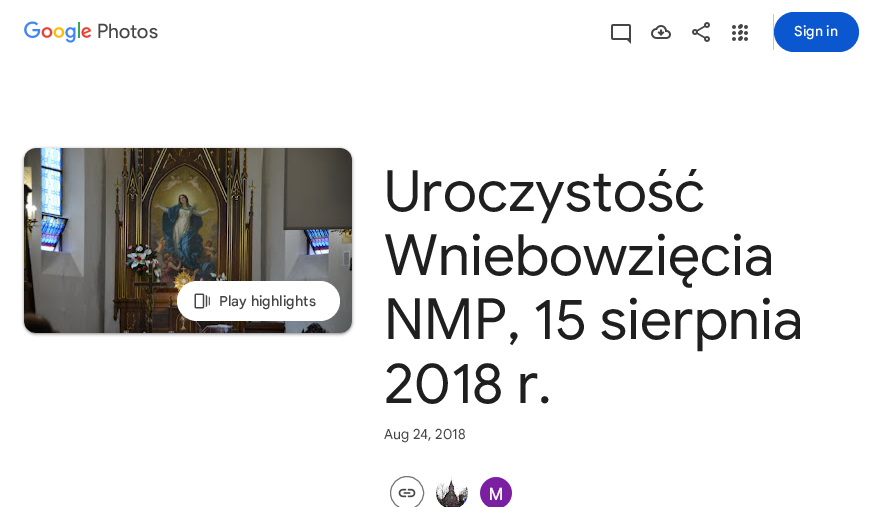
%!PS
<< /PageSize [895 507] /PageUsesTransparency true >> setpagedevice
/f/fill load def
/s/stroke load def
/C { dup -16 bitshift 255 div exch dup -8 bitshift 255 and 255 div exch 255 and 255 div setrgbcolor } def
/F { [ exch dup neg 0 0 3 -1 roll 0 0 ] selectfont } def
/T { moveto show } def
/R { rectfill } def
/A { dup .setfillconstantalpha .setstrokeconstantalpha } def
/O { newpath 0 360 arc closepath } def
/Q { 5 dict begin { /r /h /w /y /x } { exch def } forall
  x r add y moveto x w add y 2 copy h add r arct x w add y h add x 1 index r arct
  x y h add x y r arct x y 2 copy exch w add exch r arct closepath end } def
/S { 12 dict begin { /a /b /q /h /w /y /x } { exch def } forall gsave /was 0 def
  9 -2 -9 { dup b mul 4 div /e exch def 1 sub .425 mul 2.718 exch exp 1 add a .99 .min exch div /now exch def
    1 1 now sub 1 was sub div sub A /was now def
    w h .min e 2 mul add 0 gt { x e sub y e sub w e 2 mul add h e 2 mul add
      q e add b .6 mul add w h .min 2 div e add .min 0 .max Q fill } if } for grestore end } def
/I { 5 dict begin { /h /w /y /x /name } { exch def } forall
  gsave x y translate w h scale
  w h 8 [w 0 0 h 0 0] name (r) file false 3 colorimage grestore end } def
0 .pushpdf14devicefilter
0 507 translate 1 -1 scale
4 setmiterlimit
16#FFFFFF C
0 0 895 507 R
(1.rgb) 24 21 68 22 I
/ProductSans-Regular 20 F
16#444746 C
(Photos) 97 38 T
(2.rgb) 611 24 20 20 I
(3.rgb) 651 25 20 14 I
(4.rgb) 692 22 18 20 I
(5.rgb) 739 24 4 16 I
16#C4C7C5 C
773 14 1 36 R
16#000000 C
23 148 330 187 13 1.5 .15 S
24 149 328 185 12 1 .3 S
(6.rgb) 24 148 328 185 I
16#FFFFFF C
177 281 163 40 20 Q f
(7.rgb) 194 293 16 16 I
/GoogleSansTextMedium-Medium 14 F
16#444746 C
(Play highlights) 219 306 T
/GoogleSans-Regular 57 F
16#1F1F1F C
(Uroczystość) 384 211 T
(Wniebowzięcia) 384 275 T
(NMP, 15 sierpnia) 384 339 T
(2018 r.) 384 403 T
/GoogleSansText-Regular 14 F
16#444746 C
(Aug 24, 2018) 384 439 T
16#747775 C
407 493 16.5 O s
(8.rgb) 398 488 18 10 I
(9.rgb) 436 477 32 30 I
(10.rgb) 480 477 32 30 I
(11.rgb) 732 25 16 16 I
16#0B57D0 C
774 12 85 40 20 Q f
/GoogleSansTextMedium-Medium 14 F
16#FFFFFF C
(Sign in) 794 36 T
.poppdf14devicefilter showpage
